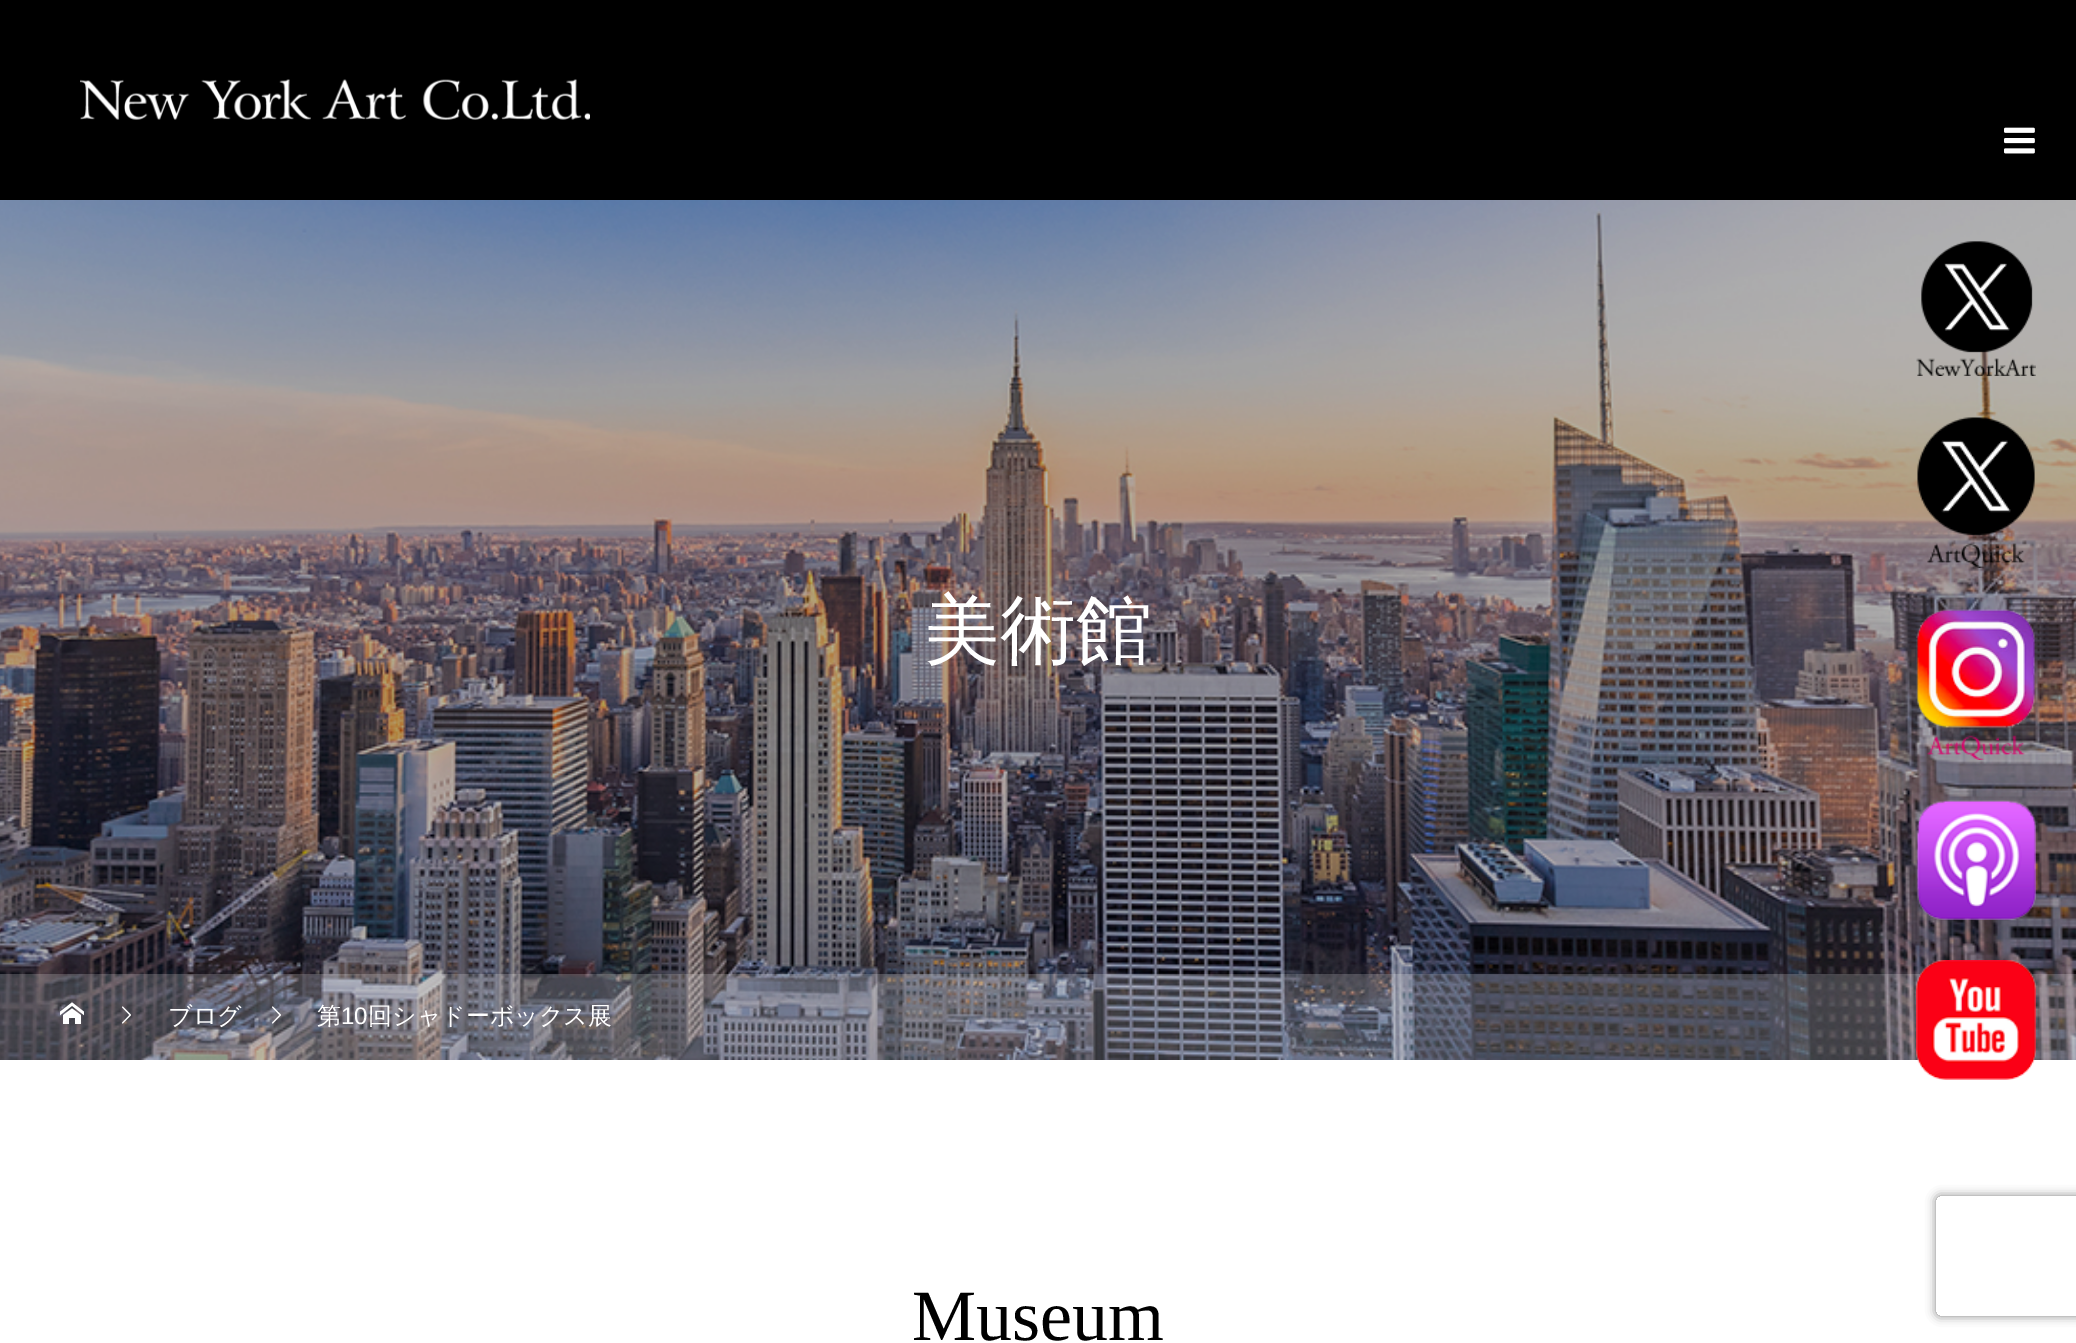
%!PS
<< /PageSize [2076 1343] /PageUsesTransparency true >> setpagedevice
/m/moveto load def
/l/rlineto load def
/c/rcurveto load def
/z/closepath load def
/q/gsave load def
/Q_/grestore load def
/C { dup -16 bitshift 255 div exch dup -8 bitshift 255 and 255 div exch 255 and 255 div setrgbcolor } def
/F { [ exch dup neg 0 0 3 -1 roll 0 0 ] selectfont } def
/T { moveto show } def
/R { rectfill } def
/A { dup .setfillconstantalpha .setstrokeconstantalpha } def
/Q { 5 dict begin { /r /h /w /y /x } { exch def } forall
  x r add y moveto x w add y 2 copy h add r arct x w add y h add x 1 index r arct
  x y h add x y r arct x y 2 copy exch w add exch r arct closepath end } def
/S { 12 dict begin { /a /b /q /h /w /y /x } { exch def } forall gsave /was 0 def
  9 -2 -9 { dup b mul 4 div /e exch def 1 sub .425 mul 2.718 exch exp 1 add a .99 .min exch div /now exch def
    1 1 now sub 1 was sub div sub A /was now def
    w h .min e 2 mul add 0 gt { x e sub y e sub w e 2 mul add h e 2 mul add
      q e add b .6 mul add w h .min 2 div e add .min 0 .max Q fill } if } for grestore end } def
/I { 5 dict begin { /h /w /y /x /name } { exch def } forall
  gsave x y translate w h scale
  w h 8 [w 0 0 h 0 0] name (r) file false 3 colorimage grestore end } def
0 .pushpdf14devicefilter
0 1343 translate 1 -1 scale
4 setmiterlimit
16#FFFFFF C
0 0 2076 1343 R
16#000000 C
0 0 2076 200 R
(1.rgb) 80 79 510 41 I
(2.rgb) 2004 127 31 27 I
(3.rgb) 0 200 2076 860 I
/WenQuanYiZenHei-Medium 76 F
16#FFFFFF C
(美術館) 924 656 T
0.2 A
0 974 2076 86 R
1 A
(4.rgb) 60 1002 24 22 I
(5.rgb) 122 1006 9 18 I
/WenQuanYiZenHei-Medium 24 F
(ブログ) 168 1024 T
(6.rgb) 272 1006 9 18 I
(第) 317 1024 T
/LiberationSans-Regular 24 F
(10) 341 1024 T
/WenQuanYiZenHei-Medium 24 F
(回シャドーボックス展) 368 1024 T
/LiberationSerif-Regular 72 F
16#000000 C
(Museum) 912 1340 T
(7.rgb) 1916 241 120 135 I
(8.rgb) 1917 417 118 151 I
(9.rgb) 1916 609 119 151 I
(10.rgb) 1916 800 120 120 I
(11.rgb) 1916 960 120 120 I
q
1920 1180 m 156 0 l 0 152 l -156 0 l z 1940 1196 m 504 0 l 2 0 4 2 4 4 c 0 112 l 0 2 -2 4 -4 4 c -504 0 l -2 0 -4 -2 -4 -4 c 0 -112 l 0 -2 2 -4 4 -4 c z eoclip newpath
16#808080 C
1936 1196 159 120 4 5 1 S
Q_
.poppdf14devicefilter showpage
